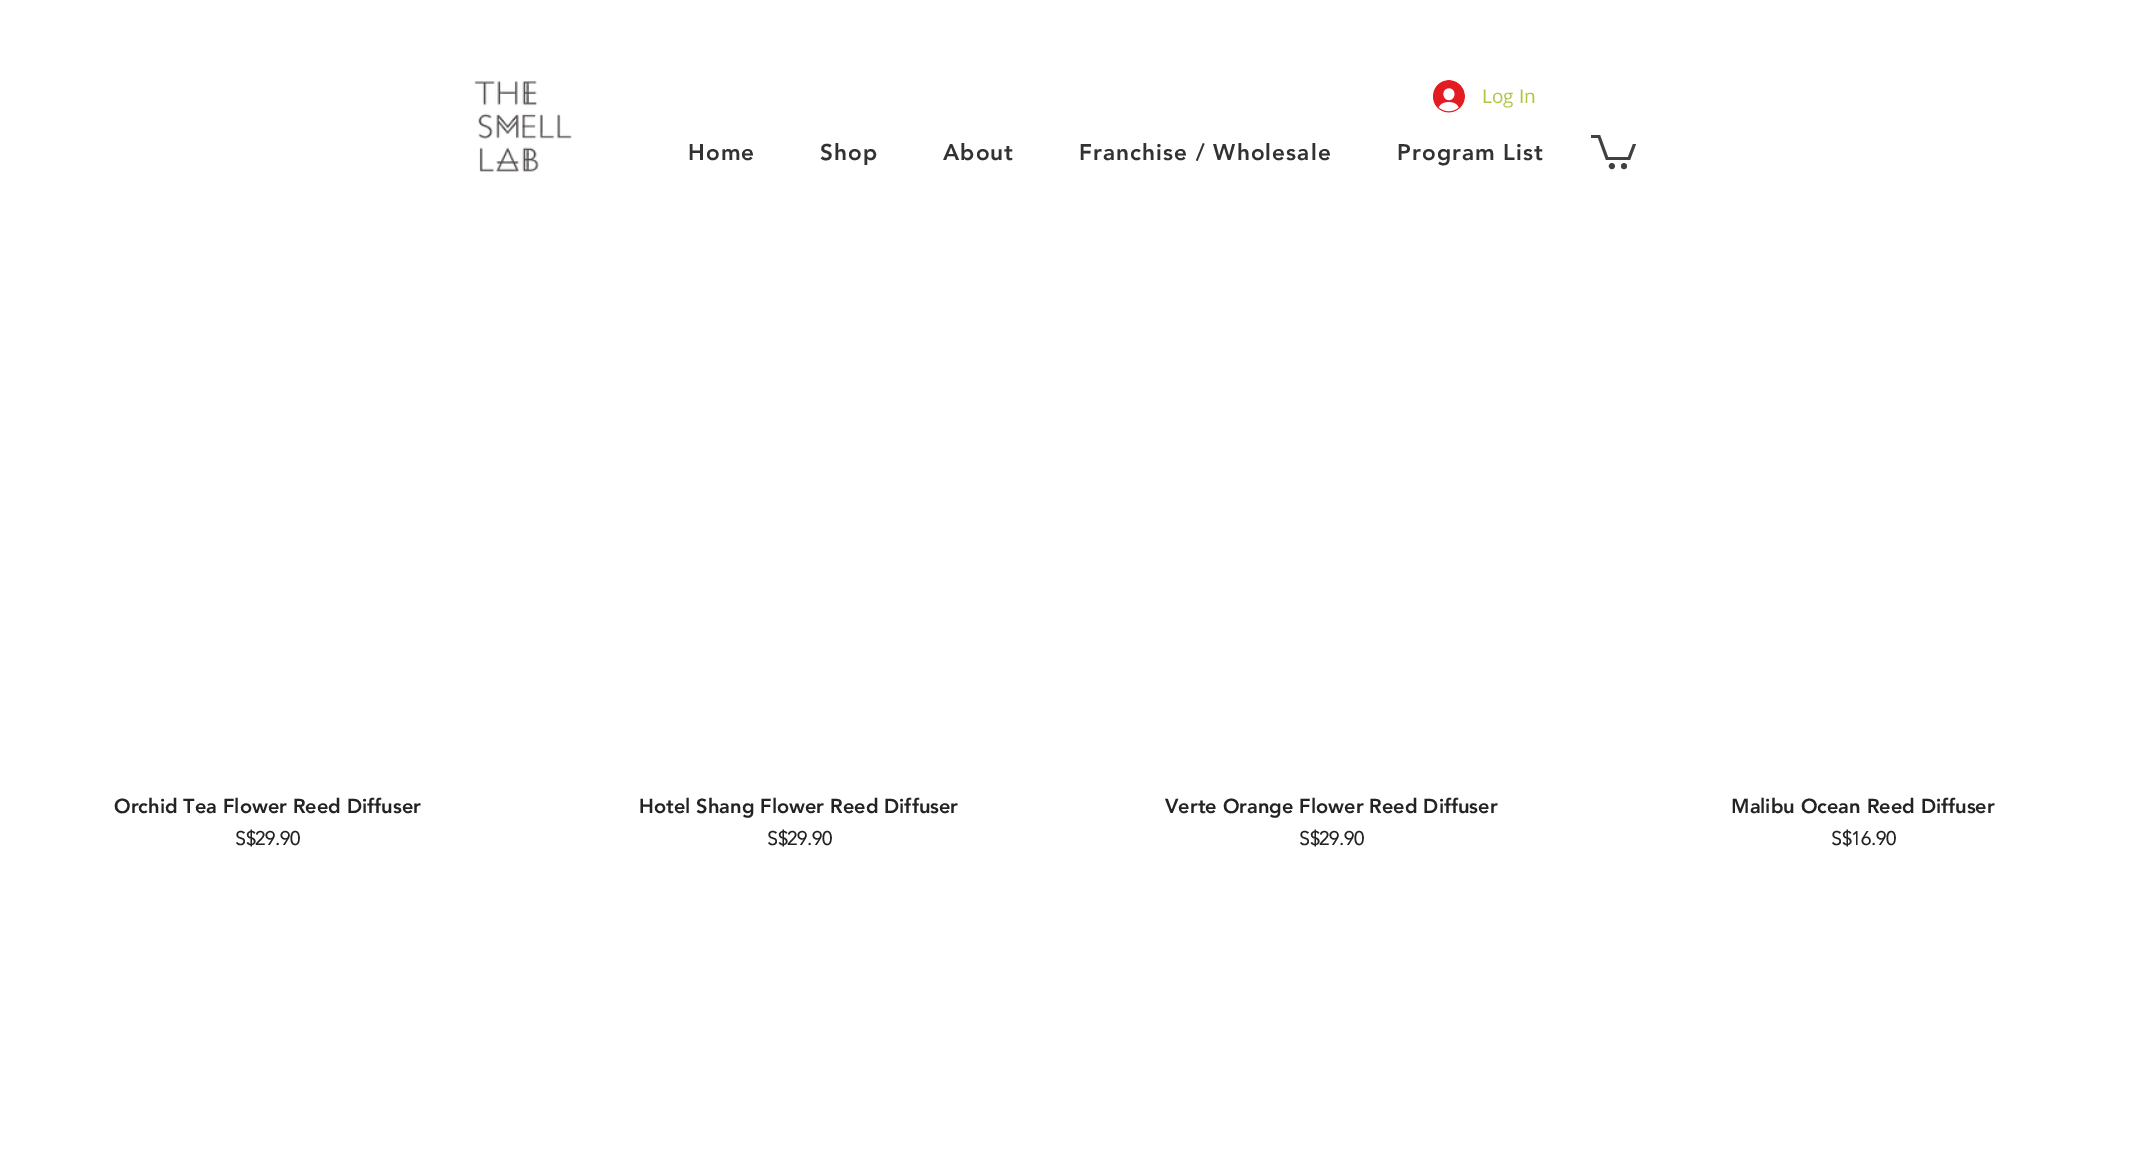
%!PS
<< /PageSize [2129 1151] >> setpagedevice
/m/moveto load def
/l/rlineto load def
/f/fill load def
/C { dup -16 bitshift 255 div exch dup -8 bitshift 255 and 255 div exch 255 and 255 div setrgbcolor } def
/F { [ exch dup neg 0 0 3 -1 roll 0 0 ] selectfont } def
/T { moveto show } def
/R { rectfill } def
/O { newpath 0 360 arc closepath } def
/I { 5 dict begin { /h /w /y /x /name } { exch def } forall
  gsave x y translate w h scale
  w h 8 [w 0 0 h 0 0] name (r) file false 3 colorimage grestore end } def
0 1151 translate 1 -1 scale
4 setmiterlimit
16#FFFFFF C
0 0 2129 1151 R
(1.rgb) 474 81 98 91 I
(2.rgb) 1433 80 32 33 I
/OpenSans-Regular 19 F
16#ADC743 C
(Log In) 1482 103 T
/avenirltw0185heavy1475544-Black 22.5 F
16#323232 C
688 160 m 1.1 0 (Home) ashow
820 160 m 1.1 0 (Shop) ashow
943 160 m 1.1 0 (About) ashow
1079 160 m 1.1 0 (Franchise / Wholesale) ashow
1397 160 m 1.1 0 (Program List) ashow
16#414141 C
1636 144 m -6 16 l -24 0 l -8 -22 l -7 0 l 0 -3 l 9 0 l 8 22 l 20 0 l 5 -13 l f
1624 166.1 3 O f
1611.9 166.1 3 O f
/avenirltw0185heavy1475544-Black 20 F
16#242323 C
(Orchid Tea Flower Reed Diffuser) 114 813 T
/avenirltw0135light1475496-Bold 19 F
(S$29.90) 235 845 T
/avenirltw0185heavy1475544-Black 20 F
(Hotel Shang Flower Reed Diffuser) 639 813 T
/avenirltw0135light1475496-Bold 19 F
(S$29.90) 767 845 T
/avenirltw0185heavy1475544-Black 20 F
(Verte Orange Flower Reed Diffuser) 1165 813 T
/avenirltw0135light1475496-Bold 19 F
(S$29.90) 1299 845 T
/avenirltw0185heavy1475544-Black 20 F
(Malibu Ocean Reed Diffuser) 1731 813 T
/avenirltw0135light1475496-Bold 19 F
(S$16.90) 1831 845 T
showpage
